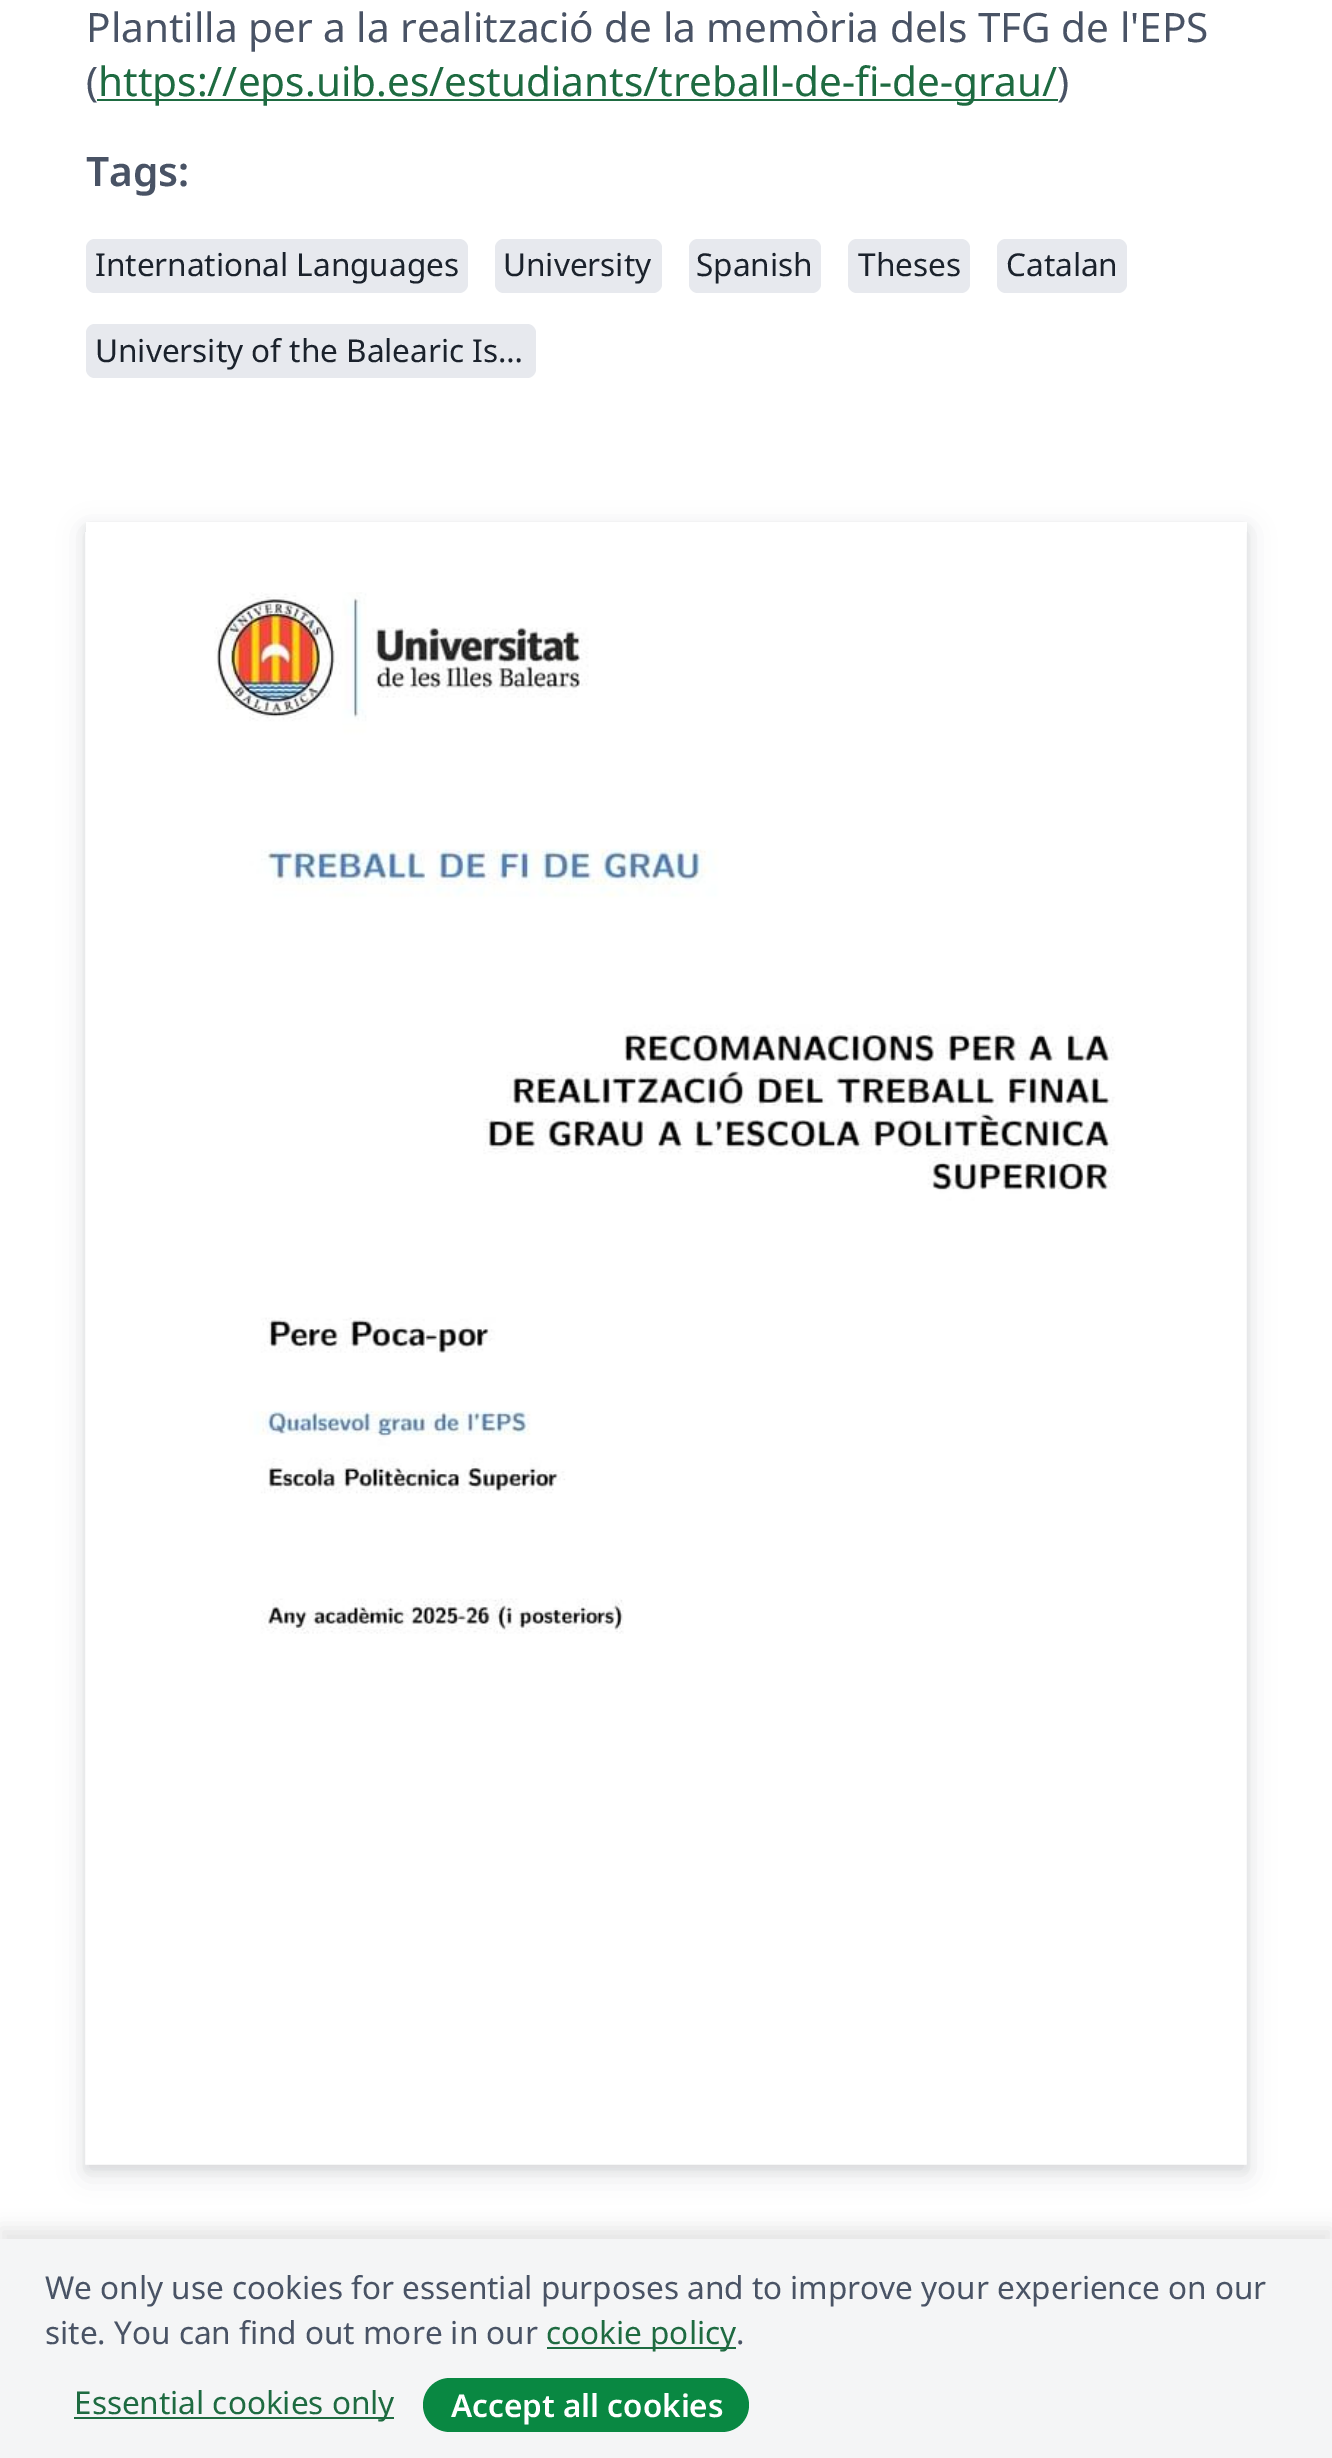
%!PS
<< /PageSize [1332 2458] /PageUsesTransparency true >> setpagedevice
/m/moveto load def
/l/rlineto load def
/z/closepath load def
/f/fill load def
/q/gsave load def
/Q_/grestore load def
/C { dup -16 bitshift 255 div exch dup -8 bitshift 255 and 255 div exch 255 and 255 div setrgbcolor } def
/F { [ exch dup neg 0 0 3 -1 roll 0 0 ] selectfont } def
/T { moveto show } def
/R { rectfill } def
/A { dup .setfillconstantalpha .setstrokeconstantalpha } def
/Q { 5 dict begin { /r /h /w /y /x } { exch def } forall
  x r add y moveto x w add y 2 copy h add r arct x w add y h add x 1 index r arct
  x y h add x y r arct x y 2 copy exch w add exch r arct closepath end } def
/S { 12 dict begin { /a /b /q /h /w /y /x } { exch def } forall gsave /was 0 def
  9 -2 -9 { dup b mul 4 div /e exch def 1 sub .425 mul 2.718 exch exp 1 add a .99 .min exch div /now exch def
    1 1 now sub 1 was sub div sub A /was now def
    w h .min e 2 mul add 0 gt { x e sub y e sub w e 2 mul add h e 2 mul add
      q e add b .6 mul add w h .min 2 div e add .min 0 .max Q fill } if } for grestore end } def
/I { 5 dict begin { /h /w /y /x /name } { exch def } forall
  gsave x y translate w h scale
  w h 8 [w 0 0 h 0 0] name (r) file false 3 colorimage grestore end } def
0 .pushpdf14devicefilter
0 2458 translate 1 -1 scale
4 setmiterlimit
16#FFFFFF C
0 0 1332 2458 R
/NotoSans-Regular 40.5 F
16#495365 C
(Plantilla per a la realització de la memòria dels TFG de l'EPS) 86 42 T
(\() 86 96 T
16#1E6B41 C
97 99 961 2 R
(https://eps.uib.es/estudiants/treball-de-fi-de-grau/) 98 96 T
16#495365 C
(\)) 1057 96 T
/NotoSans-SemiBold 40.5 F
(Tags:) 86 186 T
16#E7E9EE C
86 239 382 54 9 Q f
/NotoSans-Regular 31.5 F
16#1B222C C
(International Languages) 95 276 T
16#E7E9EE C
495 239 167 54 9 Q f
16#1B222C C
(University) 503 276 T
16#E7E9EE C
689 239 132 54 9 Q f
16#1B222C C
(Spanish) 696 276 T
16#E7E9EE C
848 239 122 54 9 Q f
16#1B222C C
(Theses) 858 276 T
16#E7E9EE C
997 239 130 54 9 Q f
16#1B222C C
(Catalan) 1006 276 T
16#E7E9EE C
86 324 450 54 9 Q f
16#1B222C C
(University of the Balearic Is…) 95 362 T
q
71 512 m 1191 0 l 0 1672 l -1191 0 l z 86 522 m 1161 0 l 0 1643 l -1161 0 l z eoclip newpath
16#1E2530 C
86 527 1161 1642 0 4.5 .08 S
Q_
q
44 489 m 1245 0 l 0 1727 l -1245 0 l z 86 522 m 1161 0 l 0 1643 l -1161 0 l z eoclip newpath
16#1E2530 C
86 531 1161 1643 0 13.5 .12 S
Q_
(1.rgb) 85 532 1162 1633 I
16#000000 C
0 2228 1332 220 0 9 .1 S
16#F4F5F6 C
0 2239 1332 219 R
16#495365 C
(We only use cookies for essential purposes and to improve your experience on our) 45 2299 T
(site. You can find out more in our) 45 2344 T
16#1E6B41 C
547 2347 189 2 R
(cookie policy) 546 2344 T
16#495365 C
(.) 736 2344 T
16#1E6B41 C
74 2417 320 2 R
(Essential cookies only) 74 2414 T
16#098842 C
423 2378 326 54 27 Q f
/NotoSans-SemiBold 31.5 F
16#FFFFFF C
(Accept all cookies) 451 2417 T
.poppdf14devicefilter showpage
